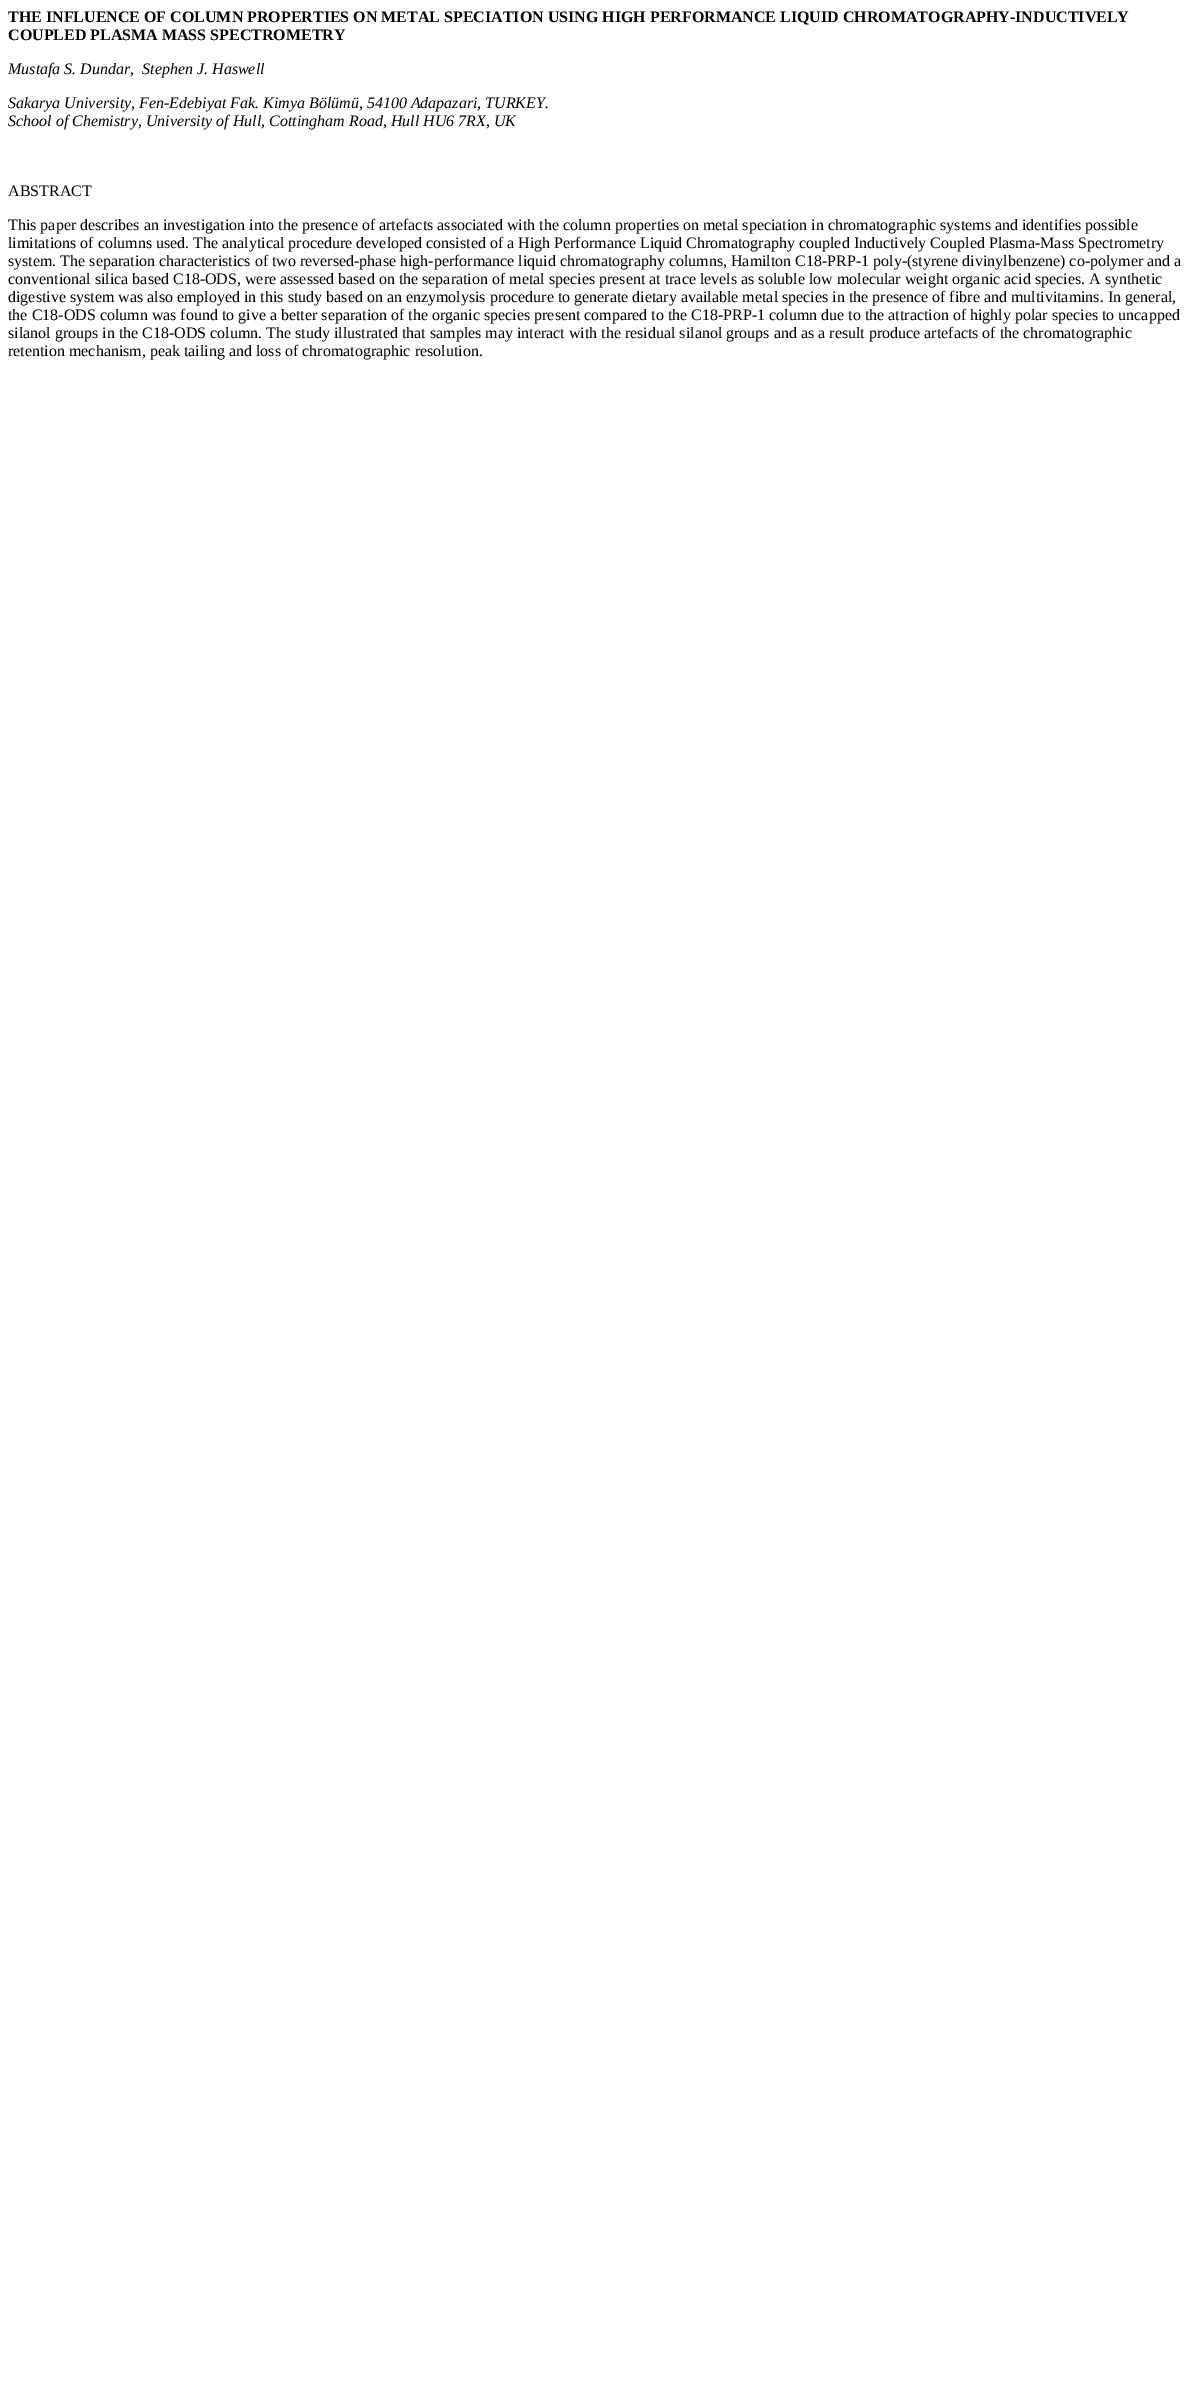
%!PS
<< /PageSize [1192 2390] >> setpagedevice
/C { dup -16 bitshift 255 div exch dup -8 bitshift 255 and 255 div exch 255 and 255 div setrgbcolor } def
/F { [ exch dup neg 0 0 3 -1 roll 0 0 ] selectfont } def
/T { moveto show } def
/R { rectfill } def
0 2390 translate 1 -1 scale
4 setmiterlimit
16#FFFFFF C
0 0 1192 2390 R
/LiberationSerif-Bold 16 F
16#000000 C
(THE INFLUENCE OF COLUMN PROPERTIES ON METAL SPECIATION USING HIGH PERFORMANCE LIQUID CHROMATOGRAPHY-INDUCTIVELY) 8 22 T
(COUPLED PLASMA MASS SPECTROMETRY) 8 40 T
/LiberationSerif-Italic 16 F
(Mustafa S. Dundar,  Stephen J. Haswell) 8 74 T
(Sakarya University, Fen-Edebiyat Fak. Kimya Bölümü, 54100 Adapazari, TURKEY.) 8 108 T
(School of Chemistry, University of Hull, Cottingham Road, Hull HU6 7RX, UK) 8 126 T
/LiberationSerif-Regular 16 F
(ABSTRACT) 8 196 T
(This paper describes an investigation into the presence of artefacts associated with the column properties on metal speciation in chromatographic systems and identifies possible) 8 230 T
(limitations of columns used. The analytical procedure developed consisted of a High Performance Liquid Chromatography coupled Inductively Coupled Plasma-Mass Spectrometry) 8 248 T
(system. The separation characteristics of two reversed-phase high-performance liquid chromatography columns, Hamilton C18-PRP-1 poly-\(styrene divinylbenzene\) co-polymer and a) 8 266 T
(conventional silica based C18-ODS, were assessed based on the separation of metal species present at trace levels as soluble low molecular weight organic acid species. A synthetic) 8 284 T
(digestive system was also employed in this study based on an enzymolysis procedure to generate dietary available metal species in the presence of fibre and multivitamins. In general,) 8 302 T
(the C18-ODS column was found to give a better separation of the organic species present compared to the C18-PRP-1 column due to the attraction of highly polar species to uncapped) 8 320 T
(silanol groups in the C18-ODS column. The study illustrated that samples may interact with the residual silanol groups and as a result produce artefacts of the chromatographic) 8 338 T
(retention mechanism, peak tailing and loss of chromatographic resolution.) 8 356 T
showpage
